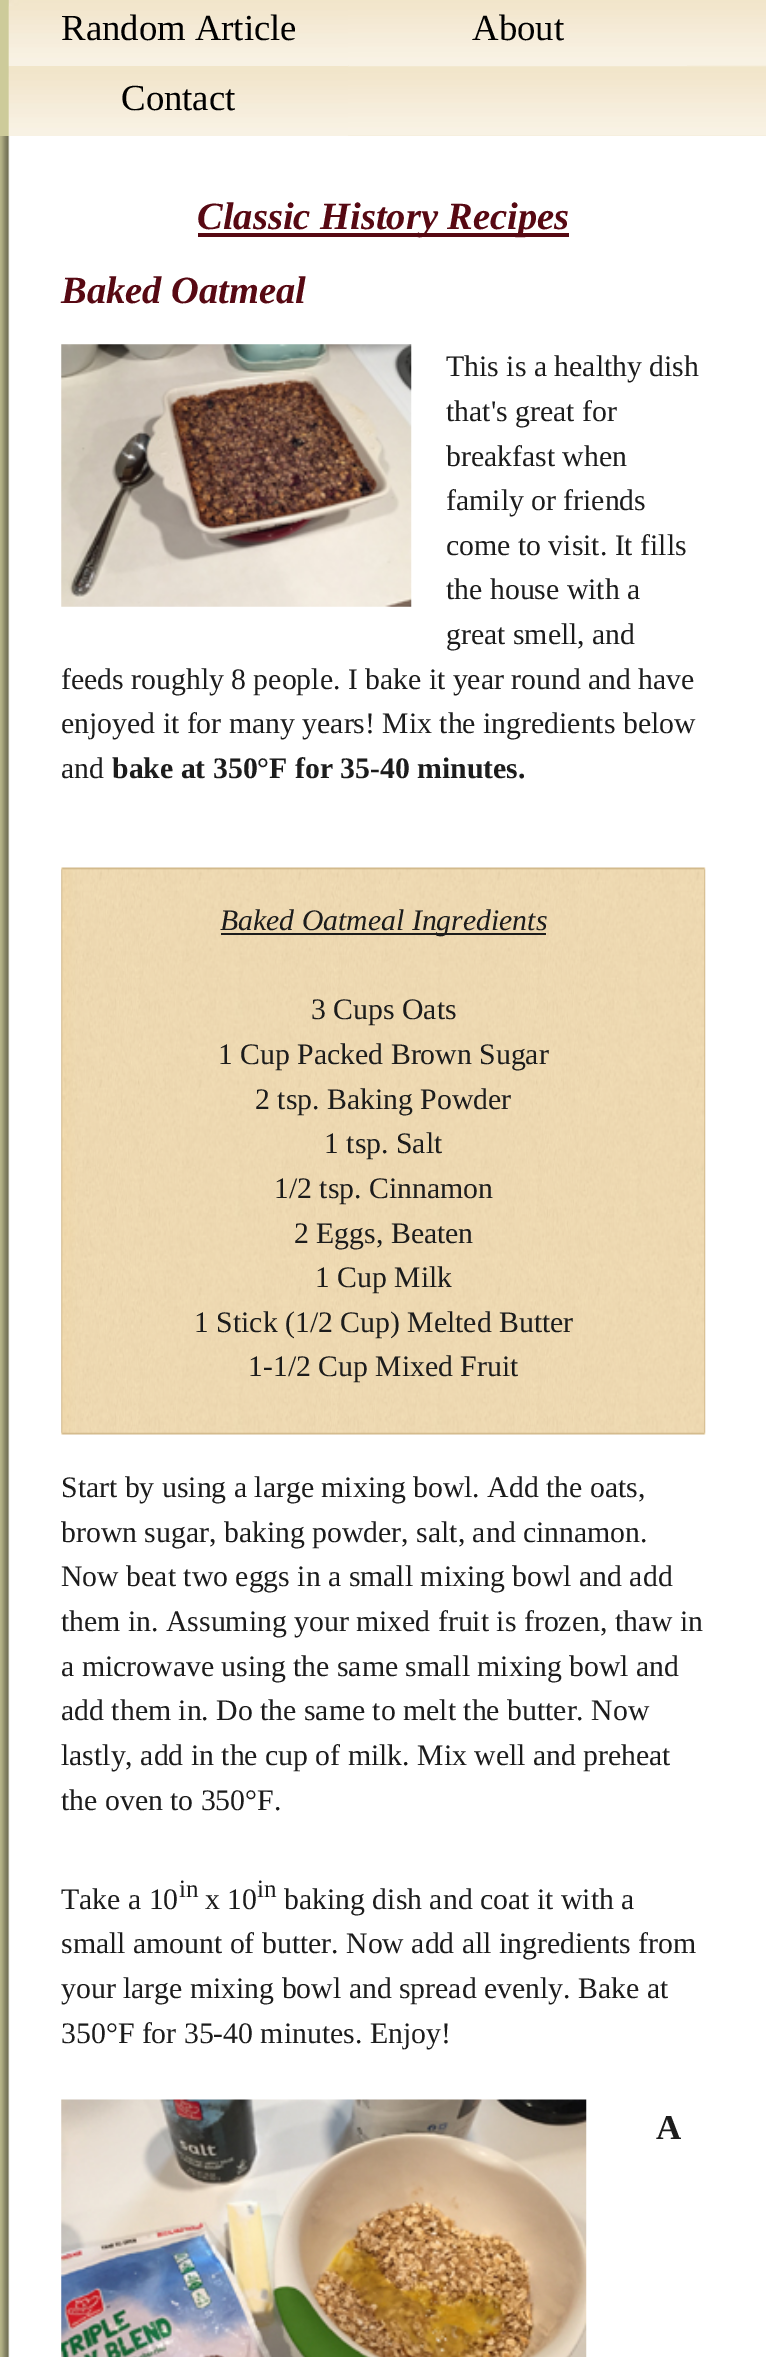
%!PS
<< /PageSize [766 2357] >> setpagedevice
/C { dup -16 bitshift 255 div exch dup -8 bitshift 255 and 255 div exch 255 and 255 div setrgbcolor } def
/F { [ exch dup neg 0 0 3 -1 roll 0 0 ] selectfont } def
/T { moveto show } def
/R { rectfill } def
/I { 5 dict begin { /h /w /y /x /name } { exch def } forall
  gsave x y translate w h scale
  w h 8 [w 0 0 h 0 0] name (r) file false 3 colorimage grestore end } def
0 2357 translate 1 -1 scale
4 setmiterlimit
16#CDCB9A C
0 0 766 2357 R
(1.rgb) 8 0 758 136 I
(2.rgb) 8 6 340 60 I
/LiberationSerif-Regular 36.75 F
16#000000 C
(Random Article) 61 40 T
16#F8F2E4 C
349 65 338 1 R
16#000000 C
(About) 472 40 T
(3.rgb) 8 66 340 70 I
(Contact) 121 110 T
(4.rgb) 0 136 766 2221 I
16#570913 C
198 233 371 4 R
/LiberationSerif-BoldItalic 38.5 F
(Classic History Recipes) 197 229 T
(Baked Oatmeal) 61 303 T
(5.rgb) 61 344 351 263 I
/LiberationSerif-Regular 29.75 F
16#1C1C1C C
(This is a healthy dish) 446 376 T
(that's great for) 446 421 T
(breakfast when) 446 466 T
(family or friends) 446 510 T
(come to visit. It fills) 446 555 T
(the house with a) 446 599 T
(great smell, and) 446 644 T
(feeds roughly 8 people. I bake it year round and have) 61 689 T
(enjoyed it for many years! Mix the ingredients below) 61 733 T
(and) 61 778 T
/LiberationSerif-Bold 29.75 F
(bake at 350°F for 35-40 minutes.) 112 778 T
(6.rgb) 61 867 645 568 I
221 933 325 2 R
/LiberationSerif-Italic 29.75 F
(Baked Oatmeal Ingredients) 220 930 T
/LiberationSerif-Regular 29.75 F
(3 Cups Oats) 311 1019 T
(1 Cup Packed Brown Sugar) 218 1064 T
(2 tsp. Baking Powder) 255 1109 T
(1 tsp. Salt) 324 1153 T
(1/2 tsp. Cinnamon) 274 1198 T
(2 Eggs, Beaten) 294 1243 T
(1 Cup Milk) 315 1287 T
(1 Stick \(1/2 Cup\) Melted Butter) 194 1332 T
(1-1/2 Cup Mixed Fruit) 248 1376 T
(Start by using a large mixing bowl. Add the oats,) 61 1497 T
(brown sugar, baking powder, salt, and cinnamon.) 61 1542 T
(Now beat two eggs in a small mixing bowl and add) 61 1586 T
(them in. Assuming your mixed fruit is frozen, thaw in) 61 1631 T
(a microwave using the same small mixing bowl and) 61 1676 T
(add them in. Do the same to melt the butter. Now) 61 1720 T
(lastly, add in the cup of milk. Mix well and preheat) 61 1765 T
(the oven to 350°F.) 61 1810 T
(Take a 10) 61 1909 T
/LiberationSerif-Regular 25 F
(in) 179 1897 T
/LiberationSerif-Regular 29.75 F
(x 10) 205 1909 T
/LiberationSerif-Regular 25 F
(in) 257 1897 T
/LiberationSerif-Regular 29.75 F
(baking dish and coat it with a) 284 1909 T
(small amount of butter. Now add all ingredients from) 61 1953 T
(your large mixing bowl and spread evenly. Bake at) 61 1998 T
(350°F for 35-40 minutes. Enjoy!) 61 2043 T
(7.rgb) 61 2099 526 258 I
/LiberationSerif-Bold 35 F
(A) 656 2139 T
showpage
